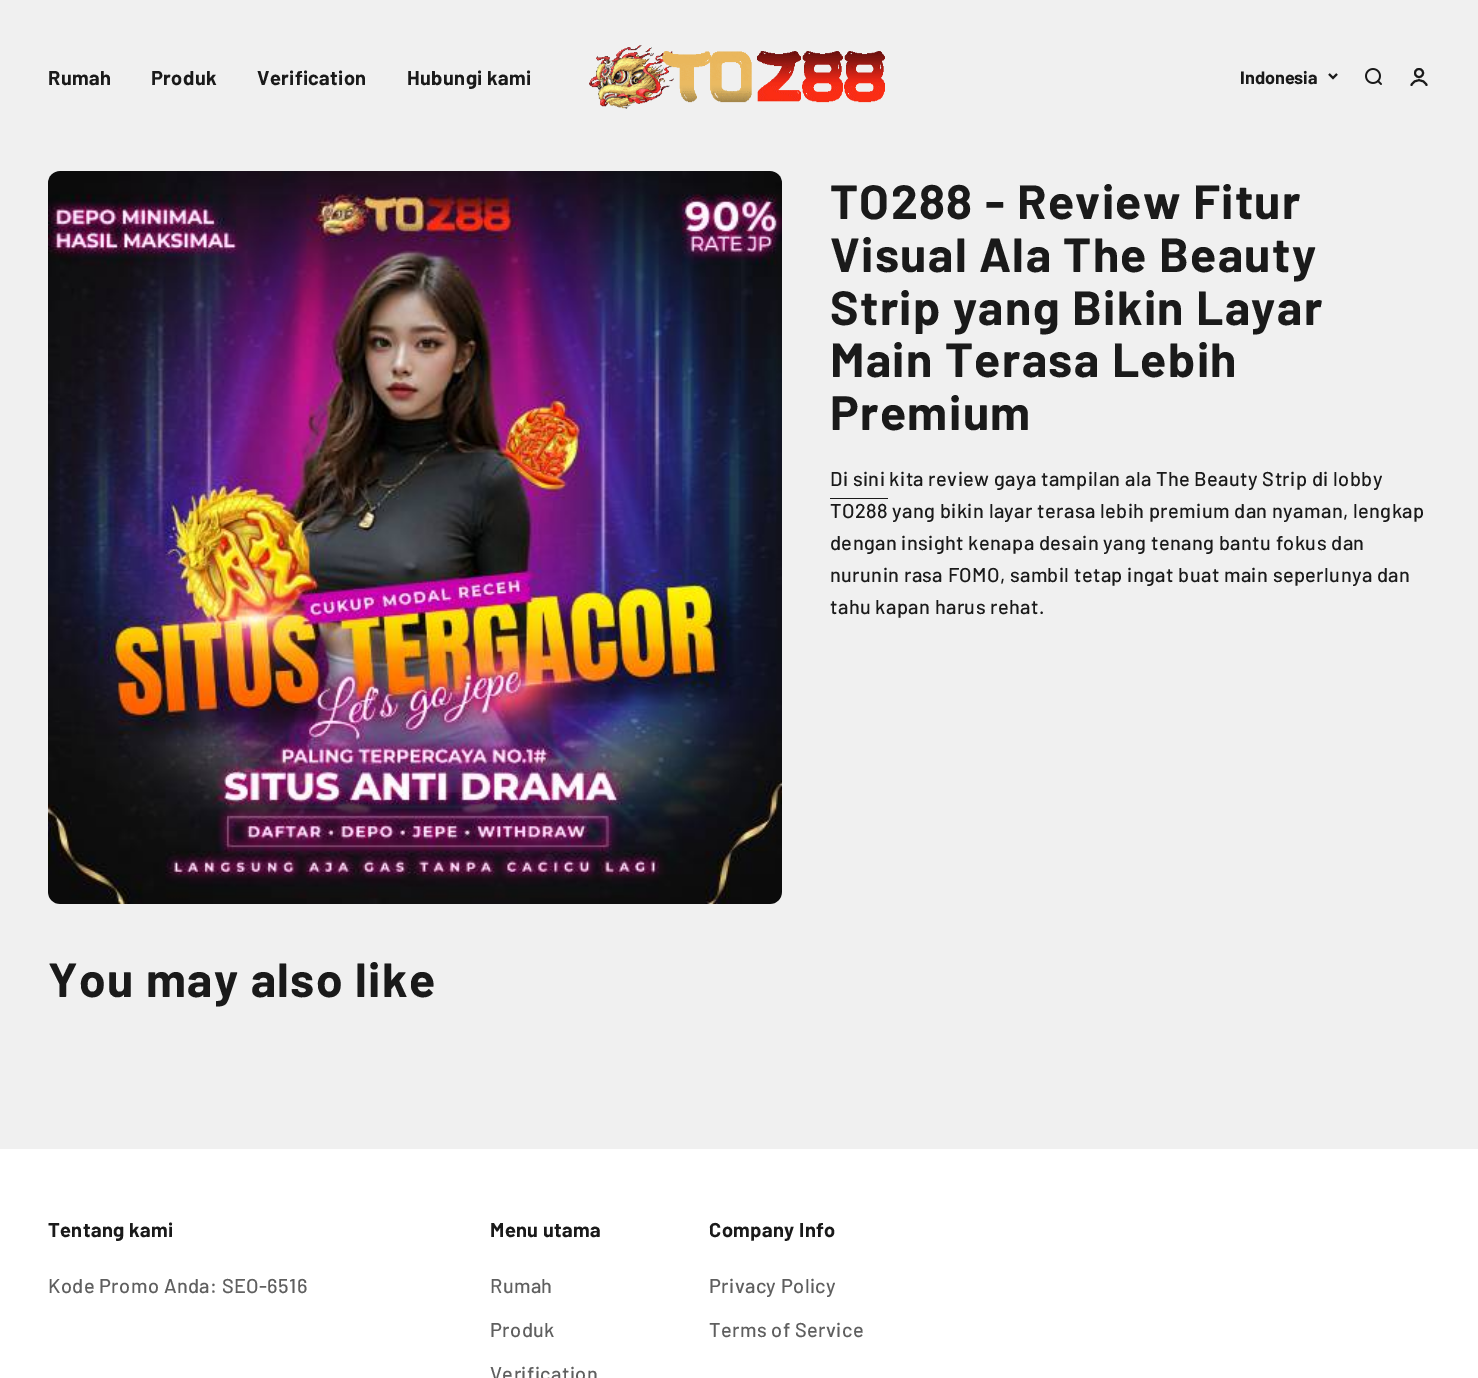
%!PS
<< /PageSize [1478 1378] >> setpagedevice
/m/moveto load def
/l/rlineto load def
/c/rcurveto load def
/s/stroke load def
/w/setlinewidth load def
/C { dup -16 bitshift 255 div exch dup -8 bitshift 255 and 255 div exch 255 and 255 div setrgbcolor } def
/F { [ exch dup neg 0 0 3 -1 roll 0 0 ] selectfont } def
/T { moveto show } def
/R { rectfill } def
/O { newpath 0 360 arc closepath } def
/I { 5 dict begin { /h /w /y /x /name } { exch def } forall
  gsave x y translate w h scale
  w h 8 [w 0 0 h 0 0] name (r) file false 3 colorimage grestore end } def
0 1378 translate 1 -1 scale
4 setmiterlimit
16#F0F0F0 C
0 0 1478 1378 R
/Barlow-Bold 20 F
16#1A1A1A C
48 85 m .4 0 (Rumah) ashow
151 85 m .4 0 (Produk) ashow
257 85 m .4 0 (Verification) ashow
407 85 m .4 0 (Hubungi kami) ashow
(1.rgb) 589 45 296 64 I
/Barlow-Bold 18 F
(Indonesia) 1240 84 T
2 w
1329 74 m 4 4 l 4 -4 l s
(2.rgb) 1365 68 17 17 I
1419 73 4 O s
1 setlinecap
1411.5 85 m 3 -6.5 12 -6.5 15 0 c s
(3.rgb) 48 171 734 733 I
/Barlow-Bold 48 F
830 219 m 1.4 0 (TO288 - Review Fitur) ashow
830 272 m 1.4 0 (Visual Ala The Beauty) ashow
830 325 m 1.4 0 (Strip yang Bikin Layar) ashow
830 377 m 1.4 0 (Main Terasa Lebih) ashow
830 430 m 1.4 0 (Premium) ashow
/Barlow-Medium 20 F
830 486 m .4 0 (Di sini kita review gaya tampilan ala The Beauty Strip di lobby) ashow
830 518 m .4 0 (TO288 yang bikin layar terasa lebih premium dan nyaman, lengkap) ashow
830 498 58 1 R
830 550 m .4 0 (dengan insight kenapa desain yang tenang bantu fokus dan) ashow
830 582 m .4 0 (nurunin rasa FOMO, sambil tetap ingat buat main seperlunya dan) ashow
830 614 m .4 0 (tahu kapan harus rehat.) ashow
/Barlow-Bold 48 F
48 997 m 1.4 0 (You may also like) ashow
16#FFFFFF C
0 1149 1478 229 R
/Barlow-Bold 20 F
16#1A1A1A C
48 1237 m .4 0 (Tentang kami) ashow
/Barlow-Medium 20 F
16#5F5F5F C
48 1293 m .4 0 (Kode Promo Anda: SEO-6516) ashow
/Barlow-Bold 20 F
16#1A1A1A C
490 1237 m .4 0 (Menu utama) ashow
/Barlow-Medium 20 F
16#5F5F5F C
490 1293 m .4 0 (Rumah) ashow
490 1337 m .4 0 (Produk) ashow
490 1381 m .4 0 (Verification) ashow
/Barlow-Bold 20 F
16#1A1A1A C
709 1237 m .4 0 (Company Info) ashow
/Barlow-Medium 20 F
16#5F5F5F C
709 1293 m .4 0 (Privacy Policy) ashow
709 1337 m .4 0 (Terms of Service) ashow
showpage
